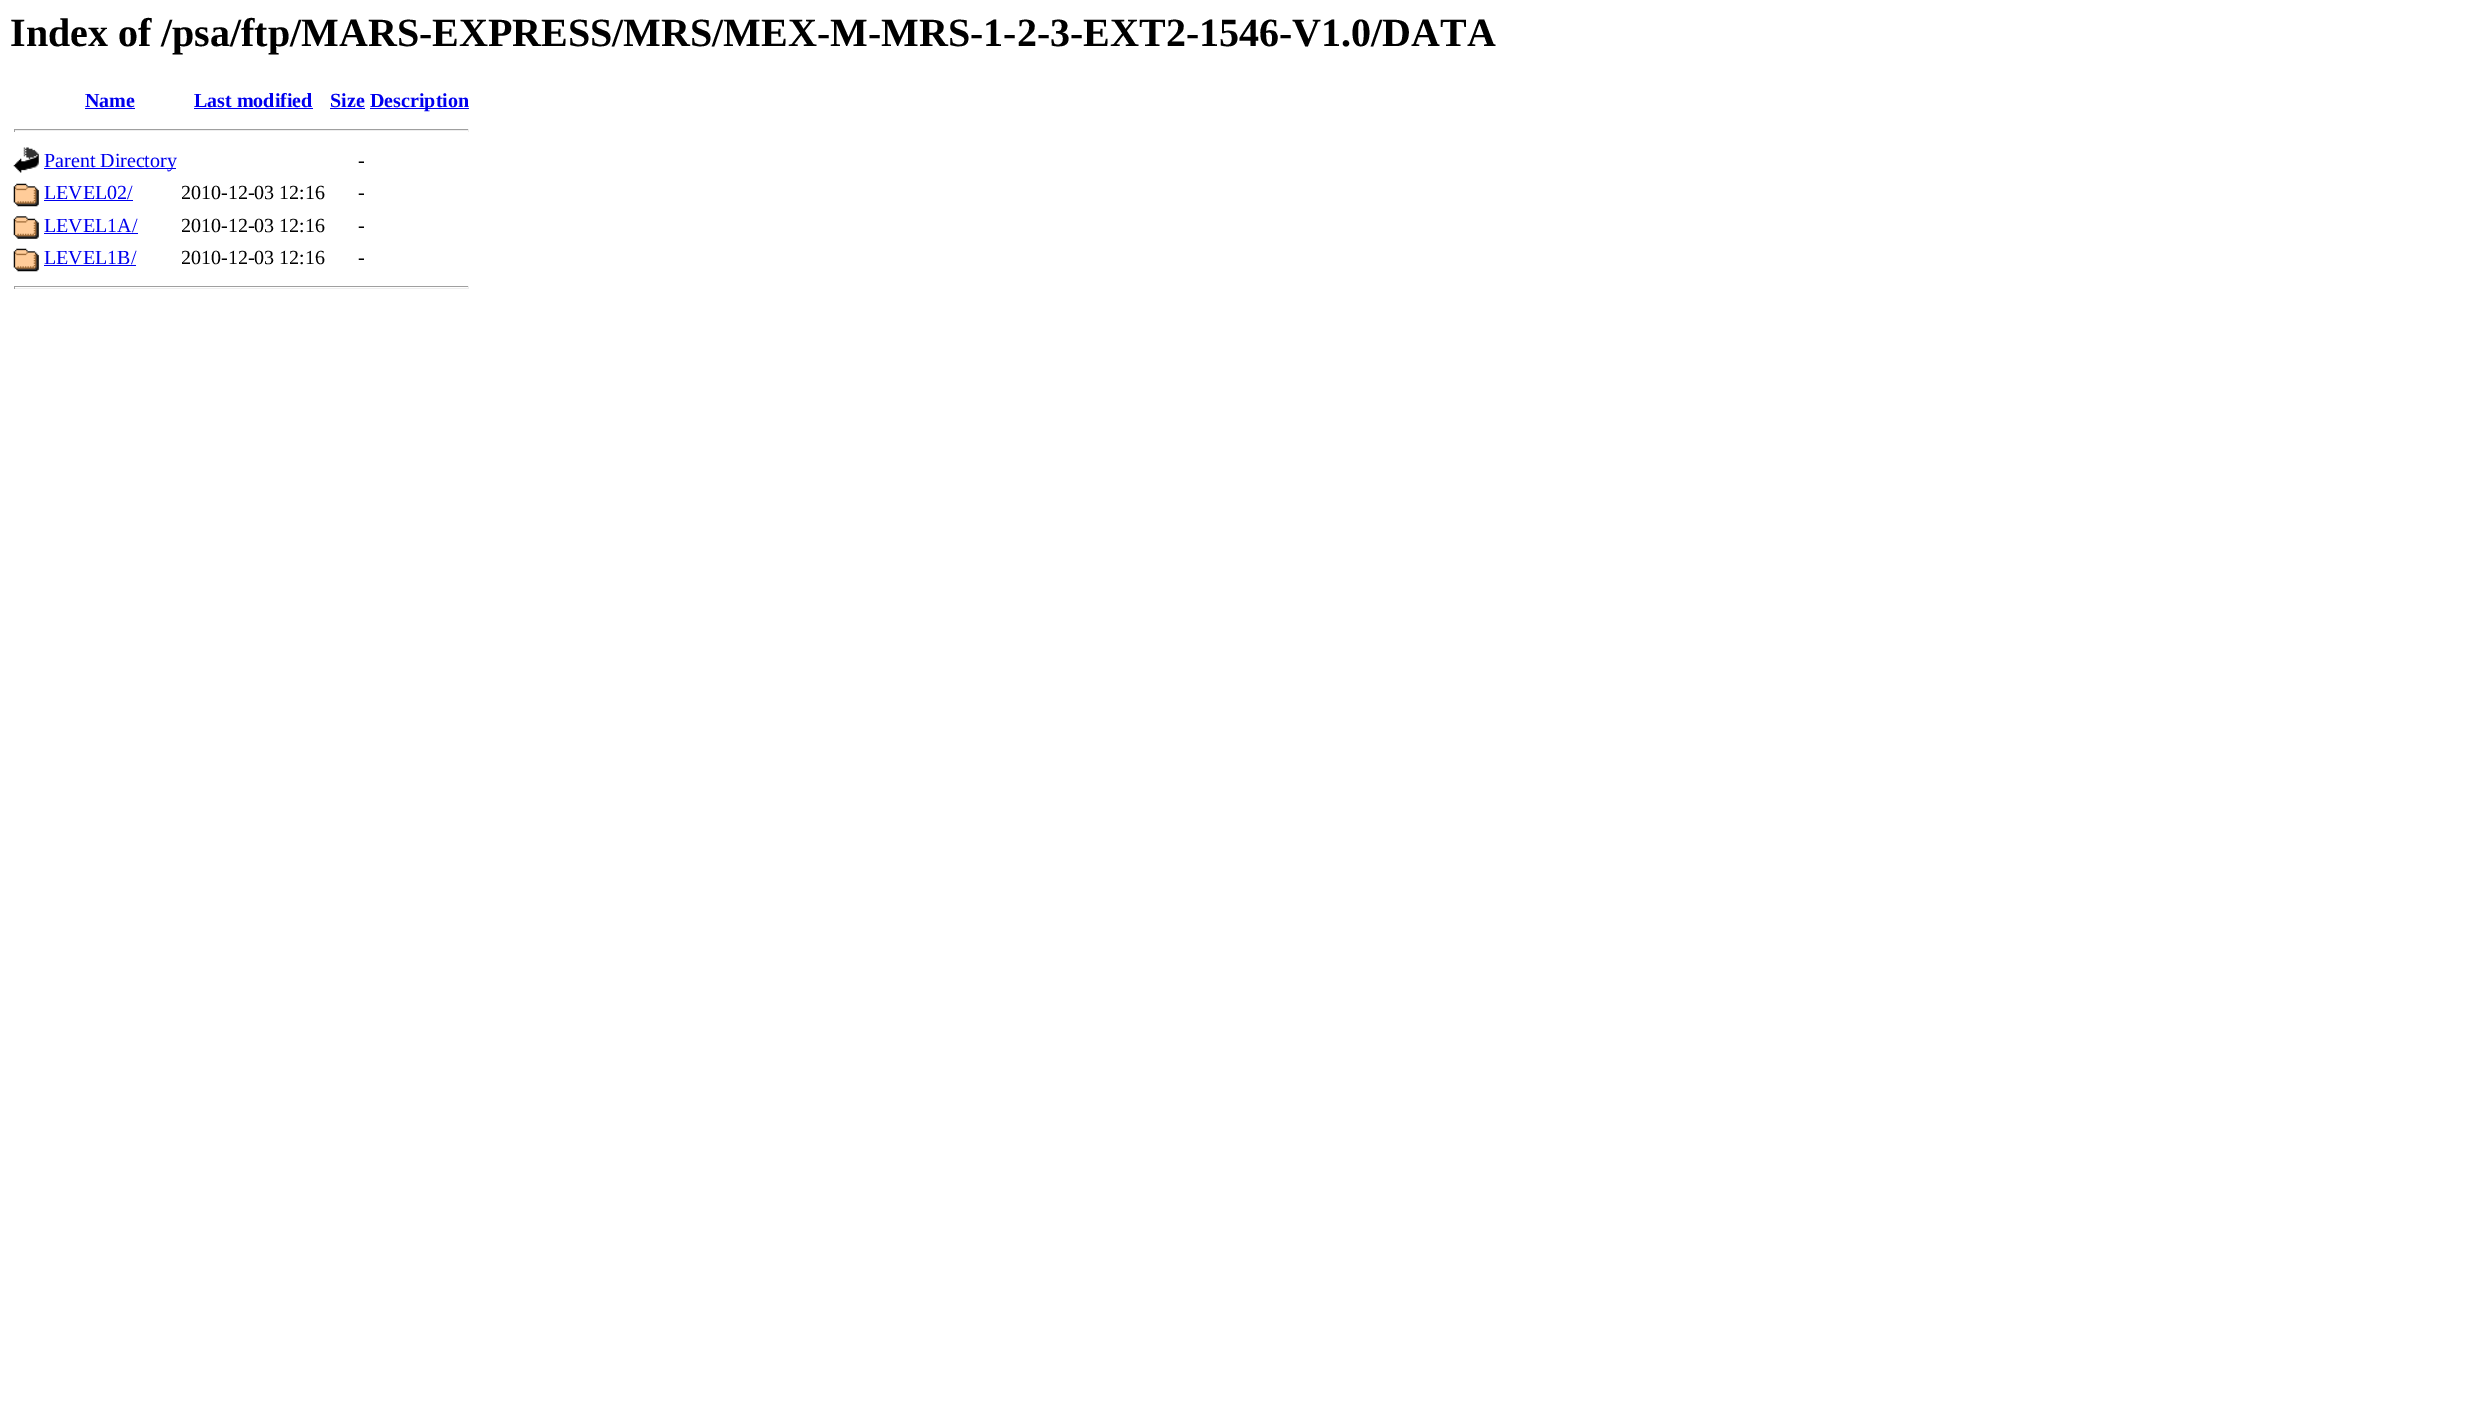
%!PS
<< /PageSize [2488 1410] >> setpagedevice
/C { dup -16 bitshift 255 div exch dup -8 bitshift 255 and 255 div exch 255 and 255 div setrgbcolor } def
/F { [ exch dup neg 0 0 3 -1 roll 0 0 ] selectfont } def
/T { moveto show } def
/R { rectfill } def
/I { 5 dict begin { /h /w /y /x /name } { exch def } forall
  gsave x y translate w h scale
  w h 8 [w 0 0 h 0 0] name (r) file false 3 colorimage grestore end } def
0 1410 translate 1 -1 scale
4 setmiterlimit
16#FFFFFF C
0 0 2488 1410 R
/LiberationSerif-Bold 40 F
16#000000 C
(Index of /psa/ftp/MARS-EXPRESS/MRS/MEX-M-MRS-1-2-3-EXT2-1546-V1.0/DATA) 10 46 T
/LiberationSerif-Bold 20 F
16#0000EE C
(Name) 85 107 T
85 108 50 1 R
(Last modified) 194 107 T
194 108 119 1 R
(Size) 330 107 T
330 108 35 1 R
370 108 99 1 R
(Description) 370 107 T
16#9F9F9F C
14 129 455 1 R
16#EEEEEE C
468 129 1 3 R
14 130 455 1 R
16#9F9F9F C
14 129 1 3 R
(1.rgb) 13 147 26 26 I
16#0000EE C
44 168 132 1 R
/LiberationSerif-Regular 20 F
(Parent Directory) 44 167 T
16#000000 C
(-) 358 167 T
(2.rgb) 13 183 26 24 I
16#0000EE C
(LEVEL02/) 44 199 T
44 200 89 1 R
16#000000 C
(2010-12-03 12:16) 181 199 T
(-) 358 199 T
(3.rgb) 13 216 26 23 I
16#0000EE C
(LEVEL1A/) 44 232 T
44 233 94 1 R
16#000000 C
(2010-12-03 12:16) 181 232 T
(-) 358 232 T
(2.rgb) 13 248 26 24 I
16#0000EE C
(LEVEL1B/) 44 264 T
44 265 92 1 R
16#000000 C
(2010-12-03 12:16) 181 264 T
(-) 358 264 T
16#9F9F9F C
14 286 455 1 R
16#EEEEEE C
468 286 1 3 R
14 288 455 1 R
16#9F9F9F C
14 286 1 3 R
showpage
